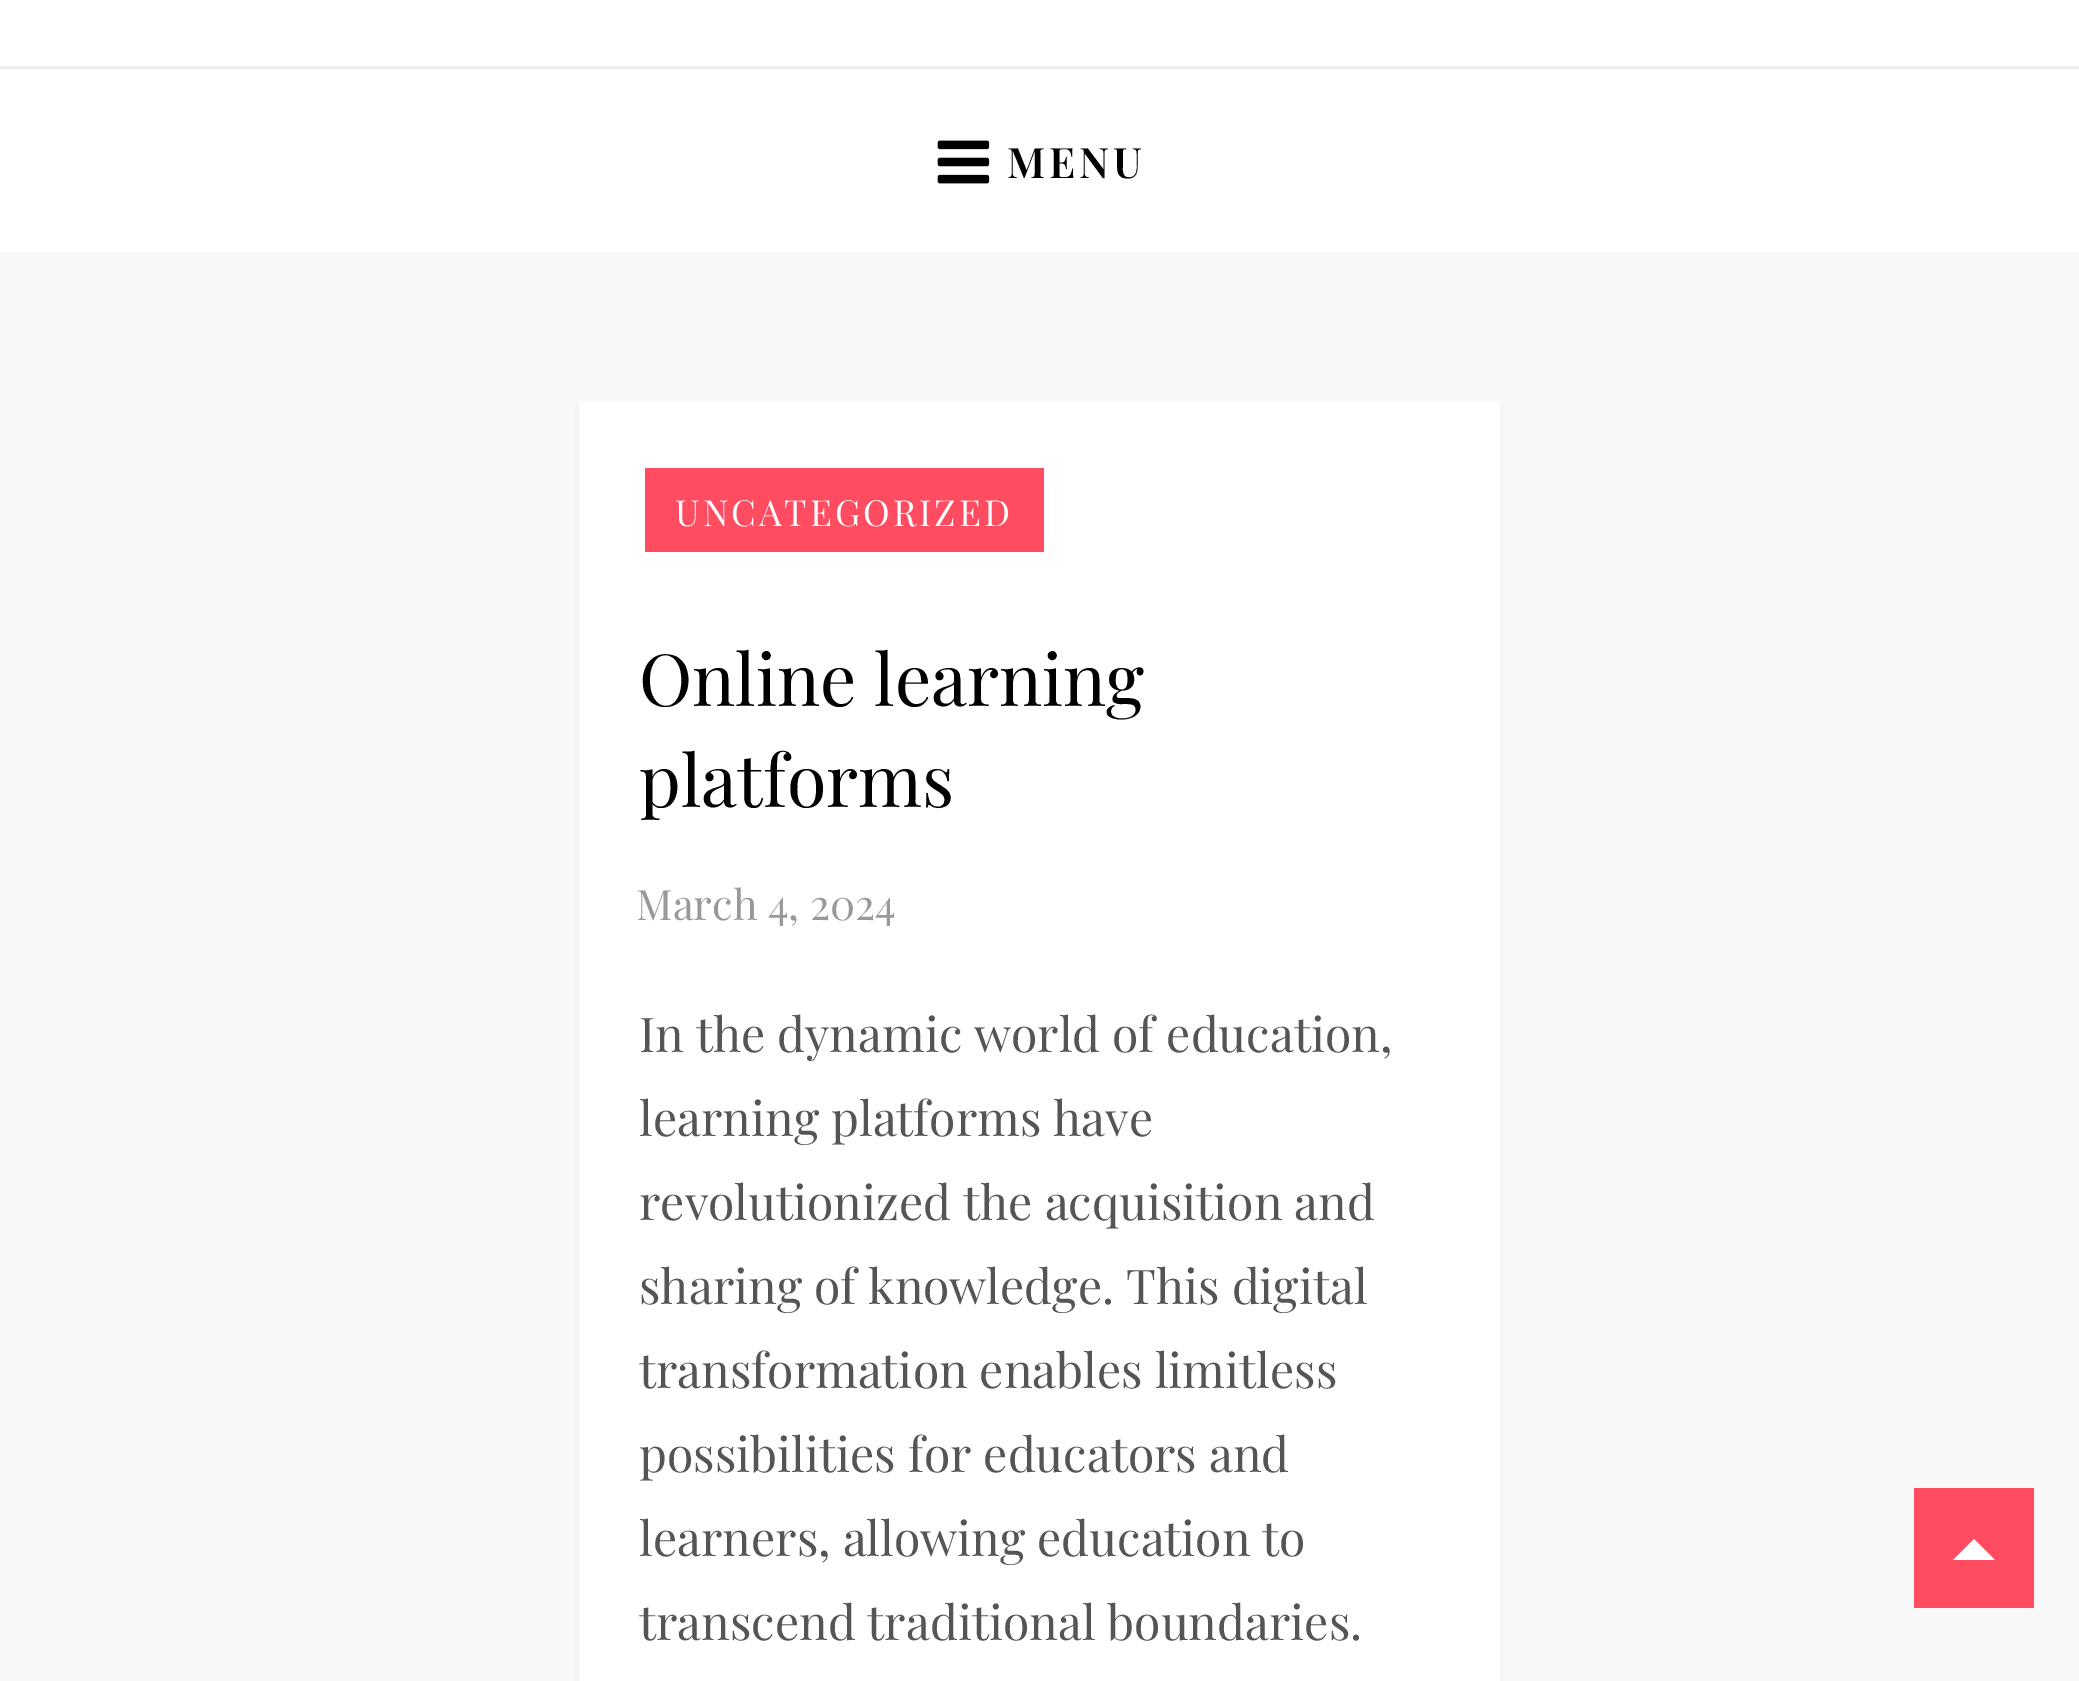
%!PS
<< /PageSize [2079 1681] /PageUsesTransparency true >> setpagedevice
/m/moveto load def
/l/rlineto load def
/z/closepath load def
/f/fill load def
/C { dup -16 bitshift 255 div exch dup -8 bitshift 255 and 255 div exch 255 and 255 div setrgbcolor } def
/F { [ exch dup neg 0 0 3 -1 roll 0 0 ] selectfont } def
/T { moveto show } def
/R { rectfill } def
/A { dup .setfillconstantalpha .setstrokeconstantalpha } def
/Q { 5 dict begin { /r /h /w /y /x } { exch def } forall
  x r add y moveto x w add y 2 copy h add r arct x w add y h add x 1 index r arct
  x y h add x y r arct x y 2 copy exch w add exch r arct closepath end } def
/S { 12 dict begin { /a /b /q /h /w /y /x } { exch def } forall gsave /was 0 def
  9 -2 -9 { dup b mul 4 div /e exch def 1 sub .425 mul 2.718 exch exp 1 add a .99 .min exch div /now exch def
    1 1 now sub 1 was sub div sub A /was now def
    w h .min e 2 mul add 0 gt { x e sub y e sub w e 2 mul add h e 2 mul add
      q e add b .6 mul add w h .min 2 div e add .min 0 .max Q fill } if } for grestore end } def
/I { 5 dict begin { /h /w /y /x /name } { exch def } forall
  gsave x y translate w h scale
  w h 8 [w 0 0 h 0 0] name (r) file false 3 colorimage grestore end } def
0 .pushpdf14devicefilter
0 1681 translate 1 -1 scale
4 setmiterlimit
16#F8F8F8 C
0 0 2079 1681 R
16#FFFFFF C
0 0 2079 252 R
16#EEEEEE C
0 66 2079 3 R
(1.rgb) 937 140 53 44 I
/PlayfairDisplay-SemiBold 42 F
16#000000 C
1007 178 m 4 0 (MENU) ashow
579 408 921 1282 0 3 .06 S
16#FFFFFF C
579 402 921 1279 R
16#FF4C60 C
645 468 399 84 R
/PlayfairDisplay-Regular 36 F
16#FFFFFF C
675 526 m 3 0 (UNCATEGORIZED) ashow
/PlayfairDisplay-Regular 72 F
16#000000 C
(Online learning) 639 706 T
(platforms) 639 807 T
/PlayfairDisplay-Regular 42 F
16#999999 C
(March 4, 2024) 636 920 T
/PlayfairDisplay-Regular 48 F
16#555555 C
(In the dynamic world of education,) 639 1052 T
(learning platforms have) 639 1136 T
(revolutionized the acquisition and) 639 1220 T
(sharing of knowledge. This digital) 639 1304 T
(transformation enables limitless) 639 1388 T
(possibilities for educators and) 639 1472 T
(learners, allowing education to) 639 1556 T
(transcend traditional boundaries.) 639 1640 T
16#FF4C60 C
1914 1488 120 120 R
16#FFFFFF C
1995 1560 m -42 0 l 21 -21 l z f
.poppdf14devicefilter showpage
